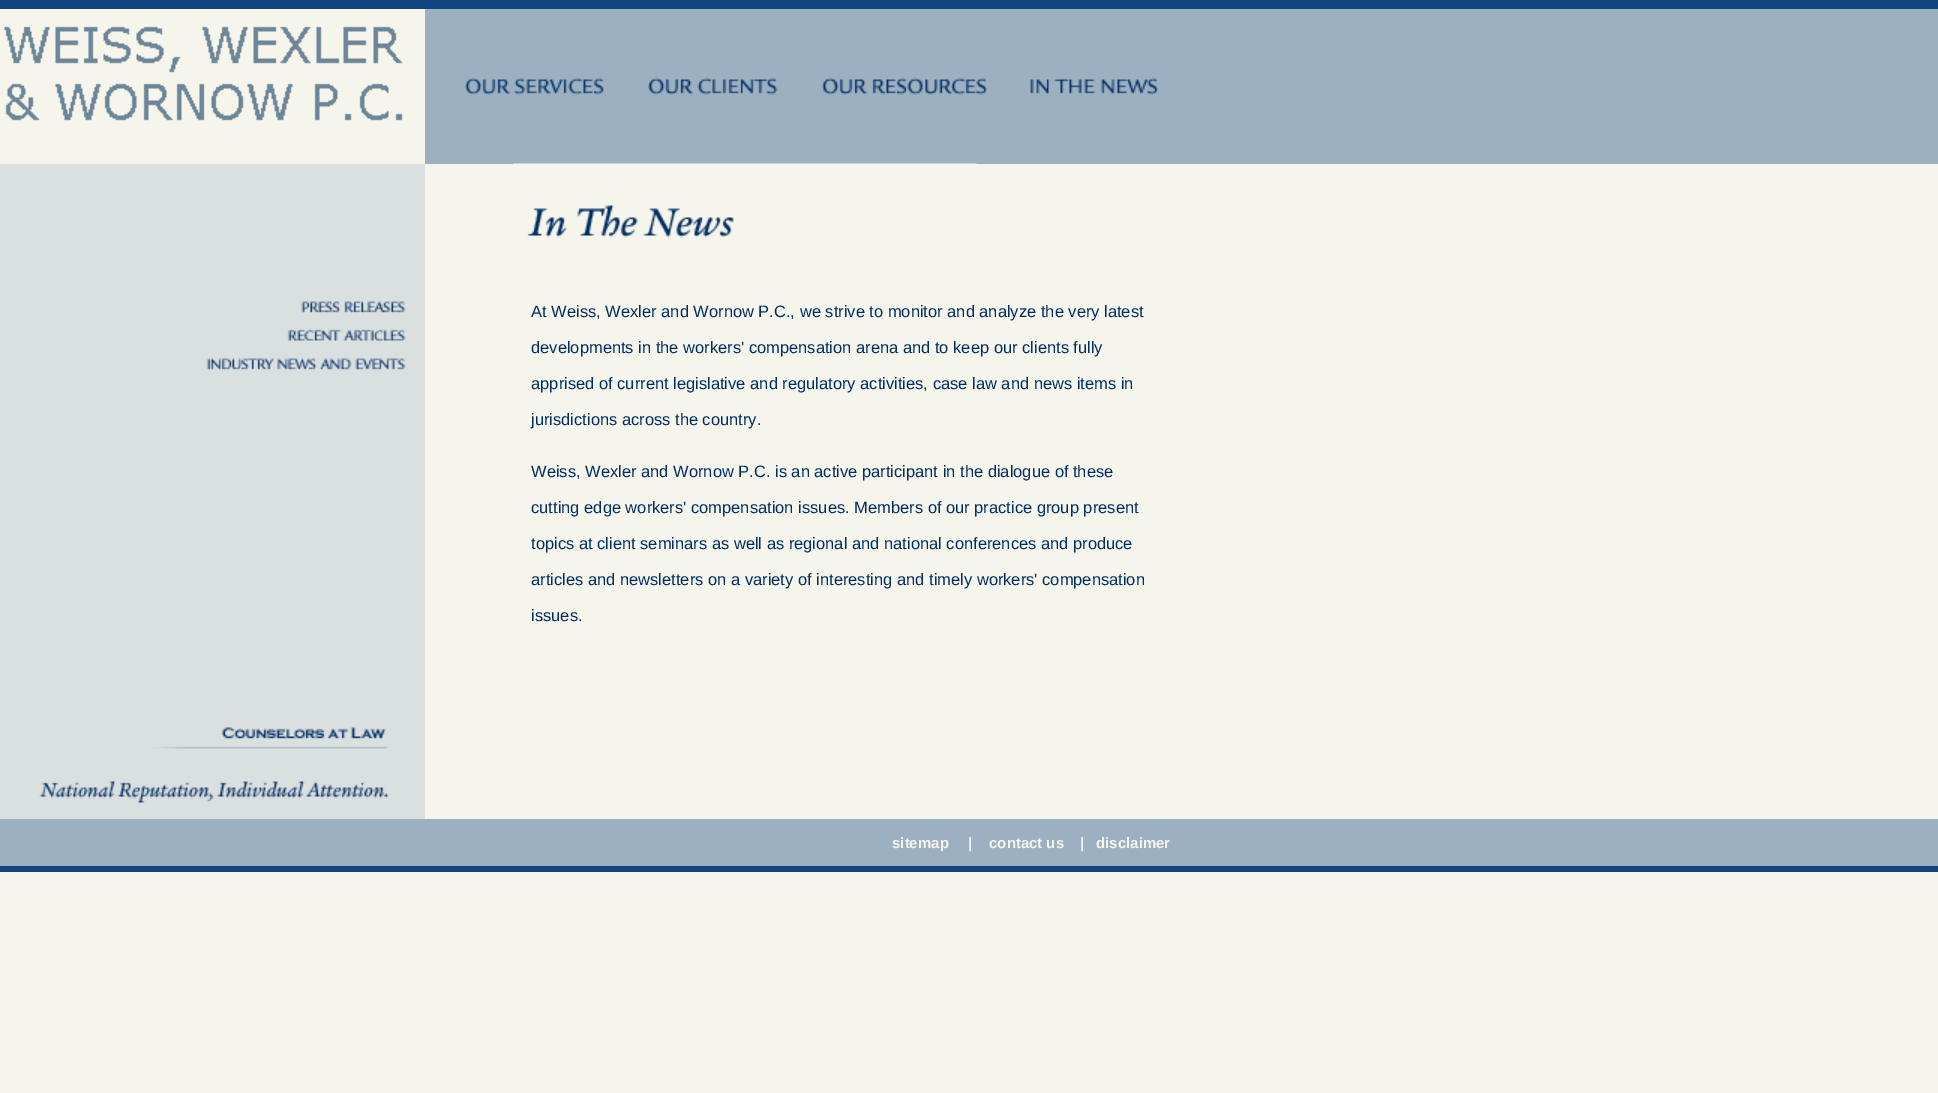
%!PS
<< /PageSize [1938 1093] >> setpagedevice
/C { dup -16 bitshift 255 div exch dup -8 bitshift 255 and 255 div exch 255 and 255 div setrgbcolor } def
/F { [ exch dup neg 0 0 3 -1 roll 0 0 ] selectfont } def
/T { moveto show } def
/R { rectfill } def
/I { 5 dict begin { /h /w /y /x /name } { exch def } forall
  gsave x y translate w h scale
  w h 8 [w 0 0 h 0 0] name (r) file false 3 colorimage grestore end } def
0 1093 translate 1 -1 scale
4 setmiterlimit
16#F6F5EC C
0 0 1938 1093 R
16#11437E C
0 0 1938 9 R
(1.rgb) 4 26 399 95 I
16#9DB0C1 C
425 9 1513 155 R
(2.rgb) 465 77 139 18 I
(3.rgb) 648 77 130 18 I
(4.rgb) 821 77 166 18 I
(5.rgb) 1030 77 128 18 I
16#DADFDF C
0 164 425 655 R
(6.rgb) 513 163 464 75 I
(7.rgb) 301 301 105 12 I
(8.rgb) 287 329 119 12 I
(9.rgb) 206 358 200 12 I
/LiberationSans-Regular 16.5 F
16#002D62 C
(At Weiss, Wexler and Wornow P.C., we strive to monitor and analyze the very latest) 531 317 T
(developments in the workers' compensation arena and to keep our clients fully) 531 353 T
(apprised of current legislative and regulatory activities, case law and news items in) 531 389 T
(jurisdictions across the country.) 531 425 T
(Weiss, Wexler and Wornow P.C. is an active participant in the dialogue of these) 531 477 T
(cutting edge workers' compensation issues. Members of our practice group present) 531 513 T
(topics at client seminars as well as regional and national conferences and produce) 531 549 T
(articles and newsletters on a variety of interesting and timely workers' compensation) 531 585 T
(issues.) 531 621 T
(10.rgb) 39 727 350 76 I
16#9DB0C1 C
0 819 1938 47 R
/LiberationSans-Bold 15 F
16#F6F5EC C
(sitemap) 892 848 T
(|) 968 848 T
(contact us) 989 848 T
(|) 1080 848 T
(disclaimer) 1096 848 T
16#11437E C
0 866 1938 6 R
showpage
